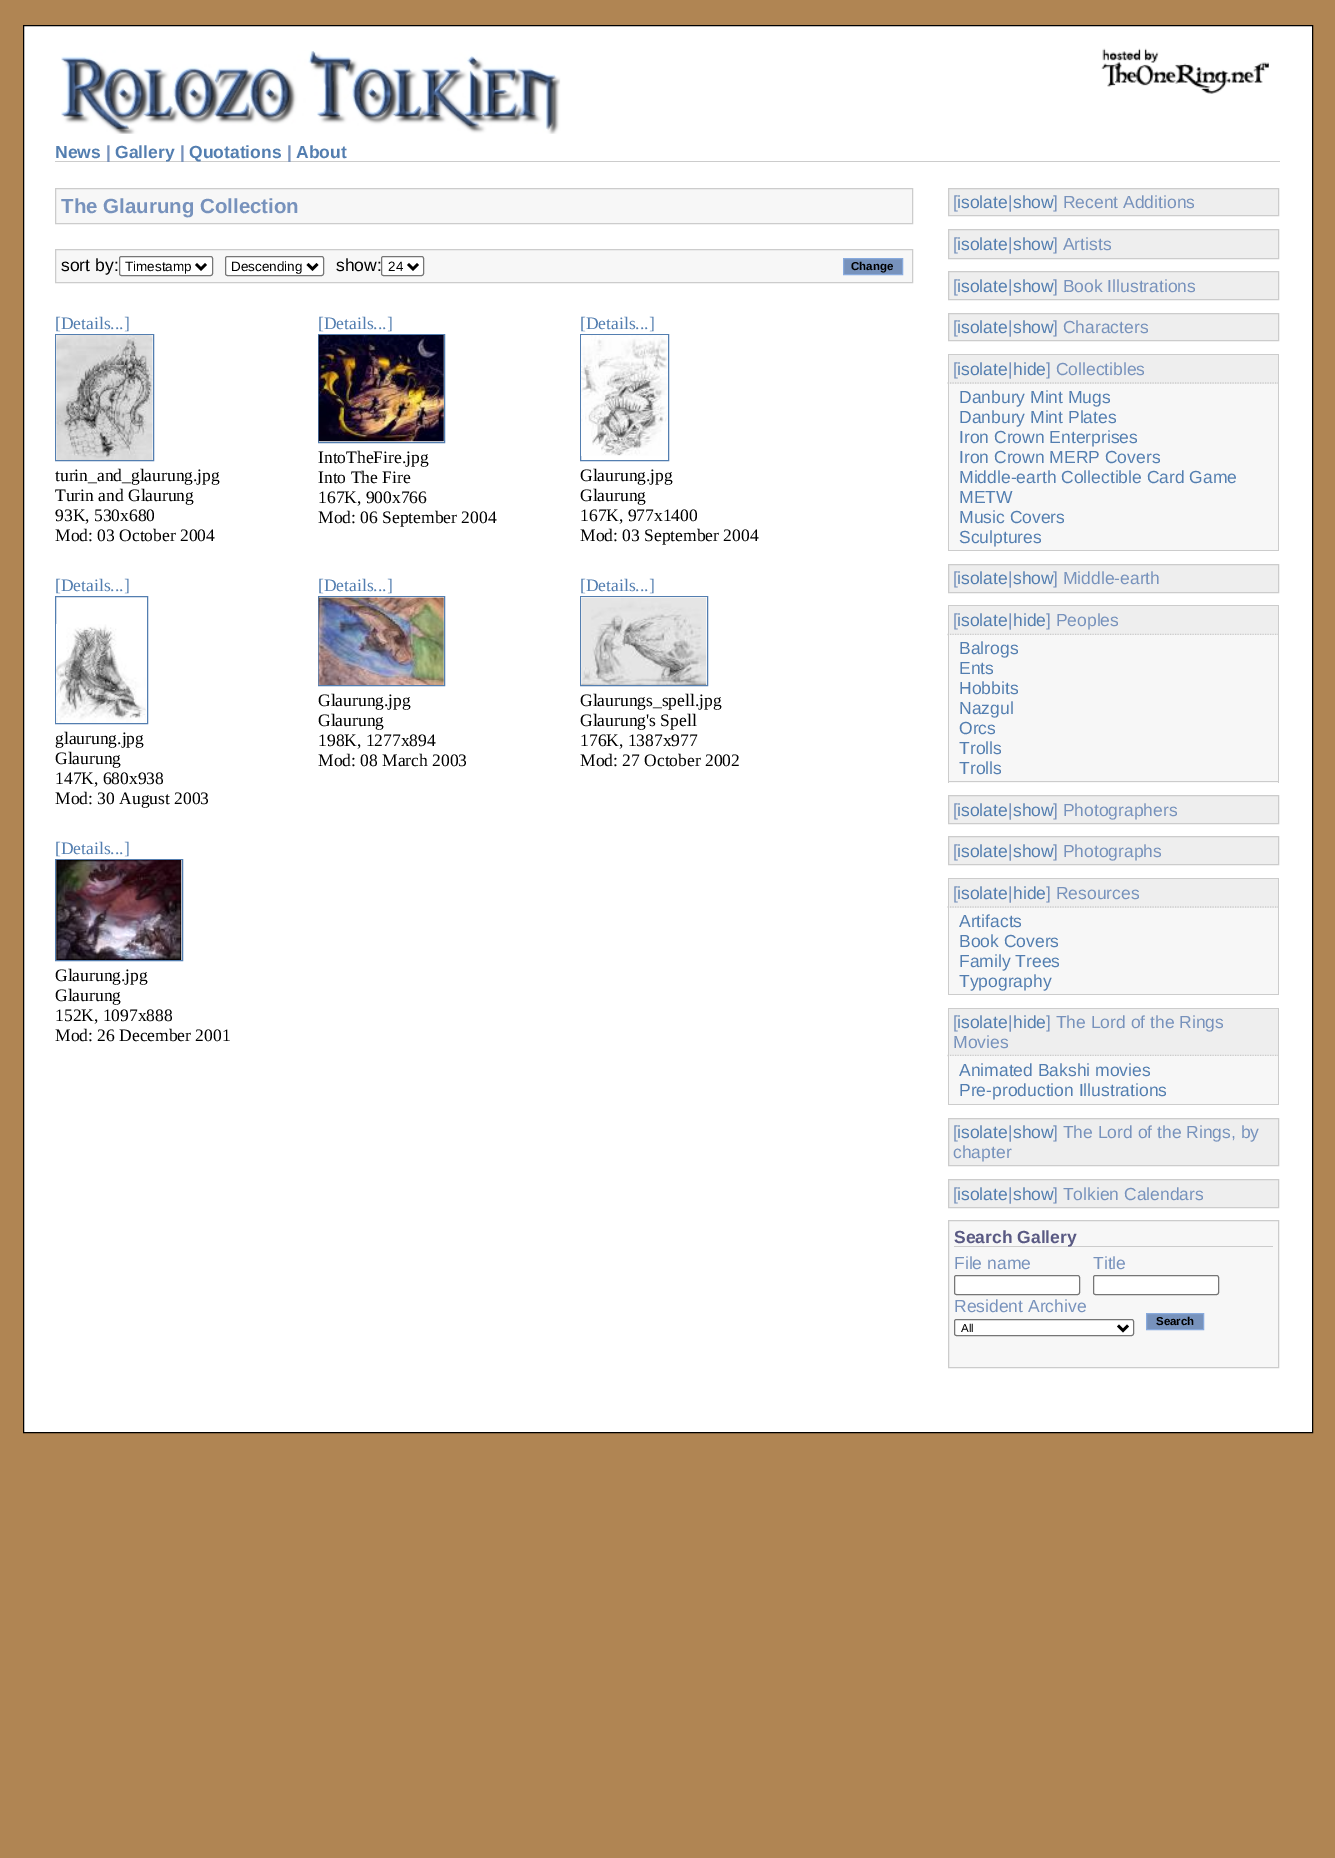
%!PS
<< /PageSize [1335 1858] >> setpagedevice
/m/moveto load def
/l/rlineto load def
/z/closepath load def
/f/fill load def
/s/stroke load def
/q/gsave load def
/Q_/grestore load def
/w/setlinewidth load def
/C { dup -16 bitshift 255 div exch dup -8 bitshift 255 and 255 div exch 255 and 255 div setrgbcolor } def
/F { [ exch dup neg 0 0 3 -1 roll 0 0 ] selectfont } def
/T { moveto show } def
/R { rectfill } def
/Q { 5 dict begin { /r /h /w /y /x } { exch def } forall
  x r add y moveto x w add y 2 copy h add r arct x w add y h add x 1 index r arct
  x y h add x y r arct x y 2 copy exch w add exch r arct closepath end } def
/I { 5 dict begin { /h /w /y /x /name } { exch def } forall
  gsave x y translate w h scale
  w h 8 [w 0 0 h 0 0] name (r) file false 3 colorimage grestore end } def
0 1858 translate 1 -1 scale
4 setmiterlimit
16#B08553 C
0 0 1335 1858 R
16#FFFFFF C
23.5 25.5 m 1289 0 l 0 1407 l -1289 0 l z q f Q_
16#000000 C
s
(1.rgb) 61 50 500 84 I
(2.rgb) 1101 48 168 46 I
16#CCCCCC C
55 161 1225 1 R
/LiberationSans-Bold 17.5 F
16#537EB0 C
(News) 55 158 T
16#7792BC C
(|) 106 158 T
16#537EB0 C
(Gallery) 115 158 T
16#7792BC C
(|) 180 158 T
16#537EB0 C
(Quotations) 189 158 T
16#7792BC C
(|) 287 158 T
16#537EB0 C
(About) 296 158 T
16#F7F7F7 C
55.5 188.5 m 857 0 l 0 35 l -857 0 l z q f Q_
16#CCCCCC C
s
/LiberationSans-Bold 20.5 F
16#7792BC C
(The Glaurung Collection) 61 213 T
16#F7F7F7 C
55.5 249.5 m 857 0 l 0 33 l -857 0 l z q f Q_
16#CCCCCC C
s
/LiberationSans-Regular 17.5 F
16#000000 C
(sort by:) 61 271 T
16#FFFFFF C
119.5 256.5 93 19 2 Q q f Q_
16#767676 C
s
16#000000 C
2.5 w
196 264 m 5 5 l 5 -5 l s
/LiberationSans-Regular 13.5 F
(Timestamp) 125 271 T
16#FFFFFF C
225.5 256.5 98 19 2 Q q f Q_
16#767676 C
1 w
s
16#000000 C
2.5 w
307.5 264 m 5 5 l 5 -5 l s
(Descending) 231 271 T
/LiberationSans-Regular 17.5 F
(show:) 336 271 T
16#FFFFFF C
381.5 256.5 42 19 2 Q q f Q_
16#767676 C
1 w
s
16#000000 C
2.5 w
408 264 m 5 5 l 5 -5 l s
/LiberationSans-Regular 13.5 F
(24) 388 271 T
16#7792BC C
843.5 258.5 m 59 0 l 0 16 l -59 0 l z q f Q_
16#88AADD C
1 w
s
/LiberationSans-Bold 11.5 F
16#000000 C
(Change) 851 270 T
/LiberationSerif-Regular 17.5 F
16#537EB0 C
([Details...]) 55 329 T
55.5 334.5 98 126 rectstroke
(3.rgb) 56 335 97 125 I
16#000000 C
(turin_and_glaurung.jpg) 55 481 T
(Turin and Glaurung) 55 501 T
(93K, 530x680) 55 521 T
(Mod: 03 October 2004) 55 541 T
16#537EB0 C
([Details...]) 318 329 T
318.5 334.5 126 108 rectstroke
(4.rgb) 318 335 126 107 I
16#000000 C
(IntoTheFire.jpg) 318 463 T
(Into The Fire) 318 483 T
(167K, 900x766) 318 503 T
(Mod: 06 September 2004) 318 523 T
16#537EB0 C
([Details...]) 580 329 T
580.5 334.5 88 126 rectstroke
(5.rgb) 581 335 87 121 I
16#000000 C
(Glaurung.jpg) 580 481 T
(Glaurung) 580 501 T
(167K, 977x1400) 580 521 T
(Mod: 03 September 2004) 580 541 T
16#537EB0 C
([Details...]) 55 591 T
55.5 596.5 92 127 rectstroke
(6.rgb) 56 624 90 99 I
16#000000 C
(glaurung.jpg) 55 744 T
(Glaurung) 55 764 T
(147K, 680x938) 55 784 T
(Mod: 30 August 2003) 55 804 T
16#537EB0 C
([Details...]) 318 591 T
318.5 596.5 126 89 rectstroke
(7.rgb) 318 597 126 88 I
16#000000 C
(Glaurung.jpg) 318 706 T
(Glaurung) 318 726 T
(198K, 1277x894) 318 746 T
(Mod: 08 March 2003) 318 766 T
16#537EB0 C
([Details...]) 580 591 T
580.5 596.5 127 89 rectstroke
(8.rgb) 581 597 126 88 I
16#000000 C
(Glaurungs_spell.jpg) 580 706 T
(Glaurung's Spell) 580 726 T
(176K, 1387x977) 580 746 T
(Mod: 27 October 2002) 580 766 T
16#537EB0 C
([Details...]) 55 854 T
55.5 859.5 127 101 rectstroke
(9.rgb) 56 860 126 100 I
16#000000 C
(Glaurung.jpg) 55 981 T
(Glaurung) 55 1001 T
(152K, 1097x888) 55 1021 T
(Mod: 26 December 2001) 55 1041 T
16#EEEEEE C
948.5 188.5 m 330 0 l 0 27 l -330 0 l z q f Q_
16#CCCCCC C
s
/LiberationSans-Regular 17.5 F
16#7792BC C
([) 953 208 T
16#537EB0 C
(isolate) 957 208 T
16#7792BC C
(|) 1008 208 T
16#537EB0 C
(show) 1013 208 T
16#7792BC C
(] Recent Additions) 1053 208 T
16#EEEEEE C
948.5 229.5 m 330 0 l 0 29 l -330 0 l z q f Q_
16#CCCCCC C
s
16#7792BC C
([) 953 250 T
16#537EB0 C
(isolate) 957 250 T
16#7792BC C
(|) 1008 250 T
16#537EB0 C
(show) 1013 250 T
16#7792BC C
(] Artists) 1053 250 T
16#EEEEEE C
948.5 271.5 m 330 0 l 0 28 l -330 0 l z q f Q_
16#CCCCCC C
s
16#7792BC C
([) 953 292 T
16#537EB0 C
(isolate) 957 292 T
16#7792BC C
(|) 1008 292 T
16#537EB0 C
(show) 1013 292 T
16#7792BC C
(] Book Illustrations) 1053 292 T
16#EEEEEE C
948.5 313.5 m 330 0 l 0 27 l -330 0 l z q f Q_
16#CCCCCC C
s
16#7792BC C
([) 953 333 T
16#537EB0 C
(isolate) 957 333 T
16#7792BC C
(|) 1008 333 T
16#537EB0 C
(show) 1013 333 T
16#7792BC C
(] Characters) 1053 333 T
16#EEEEEE C
949 355 329 29 R
16#CCCCCC C
948 354 331 1 R
1278 354 1 197 R
1.2 w
[1.25 1.25] 0 setdash
947.5 383 m 331.5 0 l s
948 354 1 30 R
16#7792BC C
([) 953 375 T
16#537EB0 C
(isolate) 957 375 T
16#7792BC C
(|) 1008 375 T
16#537EB0 C
(hide) 1013 375 T
16#7792BC C
(] Collectibles) 1046 375 T
16#F7F7F7 C
949 384 329 166 R
16#CCCCCC C
948 550 331 1 R
948 384 1 167 R
16#537EB0 C
(Danbury Mint Mugs) 959 403 T
(Danbury Mint Plates) 959 423 T
(Iron Crown Enterprises) 959 443 T
(Iron Crown MERP Covers) 959 463 T
(Middle-earth Collectible Card Game) 959 483 T
(METW) 959 503 T
(Music Covers) 959 523 T
(Sculptures) 959 543 T
16#EEEEEE C
948.5 564.5 m 330 0 l 0 28 l -330 0 l z q f Q_
16#CCCCCC C
1 w
[] 0 setdash
s
16#7792BC C
([) 953 584 T
16#537EB0 C
(isolate) 957 584 T
16#7792BC C
(|) 1008 584 T
16#537EB0 C
(show) 1013 584 T
16#7792BC C
(] Middle-earth) 1053 584 T
16#EEEEEE C
949 606 329 29 R
16#CCCCCC C
948 605 331 1 R
1278 605 1 30 R
1.2 w
[1.25 1.25] 0 setdash
947.5 634.5 m 331.5 0 l s
948 605 1 30 R
16#7792BC C
([) 953 626 T
16#537EB0 C
(isolate) 957 626 T
16#7792BC C
(|) 1008 626 T
16#537EB0 C
(hide) 1013 626 T
16#7792BC C
(] Peoples) 1046 626 T
16#F7F7F7 C
949 635 329 148 R
16#CCCCCC C
1278 635 1 148 R
948 781 331 1 R
948 635 1 148 R
16#537EB0 C
(Balrogs) 959 654 T
(Ents) 959 674 T
(Hobbits) 959 694 T
(Nazgul) 959 714 T
(Orcs) 959 734 T
(Trolls) 959 754 T
(Trolls) 959 774 T
16#EEEEEE C
948.5 795.5 m 330 0 l 0 28 l -330 0 l z q f Q_
16#CCCCCC C
1 w
[] 0 setdash
s
16#7792BC C
([) 953 816 T
16#537EB0 C
(isolate) 957 816 T
16#7792BC C
(|) 1008 816 T
16#537EB0 C
(show) 1013 816 T
16#7792BC C
(] Photographers) 1053 816 T
16#EEEEEE C
948.5 836.5 m 330 0 l 0 28 l -330 0 l z q f Q_
16#CCCCCC C
s
16#7792BC C
([) 953 857 T
16#537EB0 C
(isolate) 957 857 T
16#7792BC C
(|) 1008 857 T
16#537EB0 C
(show) 1013 857 T
16#7792BC C
(] Photographs) 1053 857 T
16#EEEEEE C
949 879 329 29 R
16#CCCCCC C
948 878 331 1 R
1278 878 1 117 R
1.2 w
[1.25 1.25] 0 setdash
947.5 907 m 331.5 0 l s
948 878 1 30 R
16#7792BC C
([) 953 899 T
16#537EB0 C
(isolate) 957 899 T
16#7792BC C
(|) 1008 899 T
16#537EB0 C
(hide) 1013 899 T
16#7792BC C
(] Resources) 1046 899 T
16#F7F7F7 C
949 908 329 86 R
16#CCCCCC C
948 994 331 1 R
948 908 1 87 R
16#537EB0 C
(Artifacts) 959 927 T
(Book Covers) 959 947 T
(Family Trees) 959 967 T
(Typography) 959 987 T
16#EEEEEE C
949 1009 329 47 R
16#CCCCCC C
948 1008 331 1 R
1278 1008 1 48 R
947.5 1055.5 m 331.5 0 l s
948 1008 1 48 R
16#7792BC C
([) 953 1028 T
16#537EB0 C
(isolate) 957 1028 T
16#7792BC C
(|) 1008 1028 T
16#537EB0 C
(hide) 1013 1028 T
16#7792BC C
(] The Lord of the Rings) 1046 1028 T
(Movies) 953 1048 T
16#F7F7F7 C
949 1056 329 48 R
16#CCCCCC C
1278 1056 1 49 R
948 1104 331 1 R
948 1056 1 49 R
16#537EB0 C
(Animated Bakshi movies) 959 1076 T
(Pre-production Illustrations) 959 1096 T
16#EEEEEE C
948.5 1118.5 m 330 0 l 0 47 l -330 0 l z q f Q_
16#CCCCCC C
1 w
[] 0 setdash
s
16#7792BC C
([) 953 1138 T
16#537EB0 C
(isolate) 957 1138 T
16#7792BC C
(|) 1008 1138 T
16#537EB0 C
(show) 1013 1138 T
16#7792BC C
(] The Lord of the Rings, by) 1053 1138 T
(chapter) 953 1158 T
16#EEEEEE C
948.5 1179.5 m 330 0 l 0 28 l -330 0 l z q f Q_
16#CCCCCC C
s
16#7792BC C
([) 953 1200 T
16#537EB0 C
(isolate) 957 1200 T
16#7792BC C
(|) 1008 1200 T
16#537EB0 C
(show) 1013 1200 T
16#7792BC C
(] Tolkien Calendars) 1053 1200 T
16#F7F7F7 C
948.5 1220.5 m 330 0 l 0 147 l -330 0 l z q f Q_
16#CCCCCC C
s
954 1246 319 1 R
/LiberationSans-Bold 17.5 F
16#595983 C
(Search Gallery) 954 1243 T
/LiberationSans-Regular 17.5 F
16#7792BC C
(File name) 954 1269 T
16#FFFFFF C
954.5 1275.5 125 19 2 Q q f Q_
16#767676 C
s
16#7792BC C
(Title) 1093 1269 T
16#FFFFFF C
1093.5 1275.5 125 19 2 Q q f Q_
16#767676 C
s
16#7792BC C
(Resident Archive) 954 1312 T
16#FFFFFF C
954.5 1319.5 179 16 2 Q q f Q_
16#767676 C
s
16#000000 C
2.5 w
1118 1325.5 m 5 5 l 5 -5 l s
/LiberationSans-Regular 11.5 F
(All) 961 1332 T
16#7792BC C
1146.5 1313.5 m 57 0 l 0 16 l -57 0 l z q f Q_
16#88AADD C
1 w
s
/LiberationSans-Bold 11.5 F
16#000000 C
(Search) 1156 1325 T
showpage
